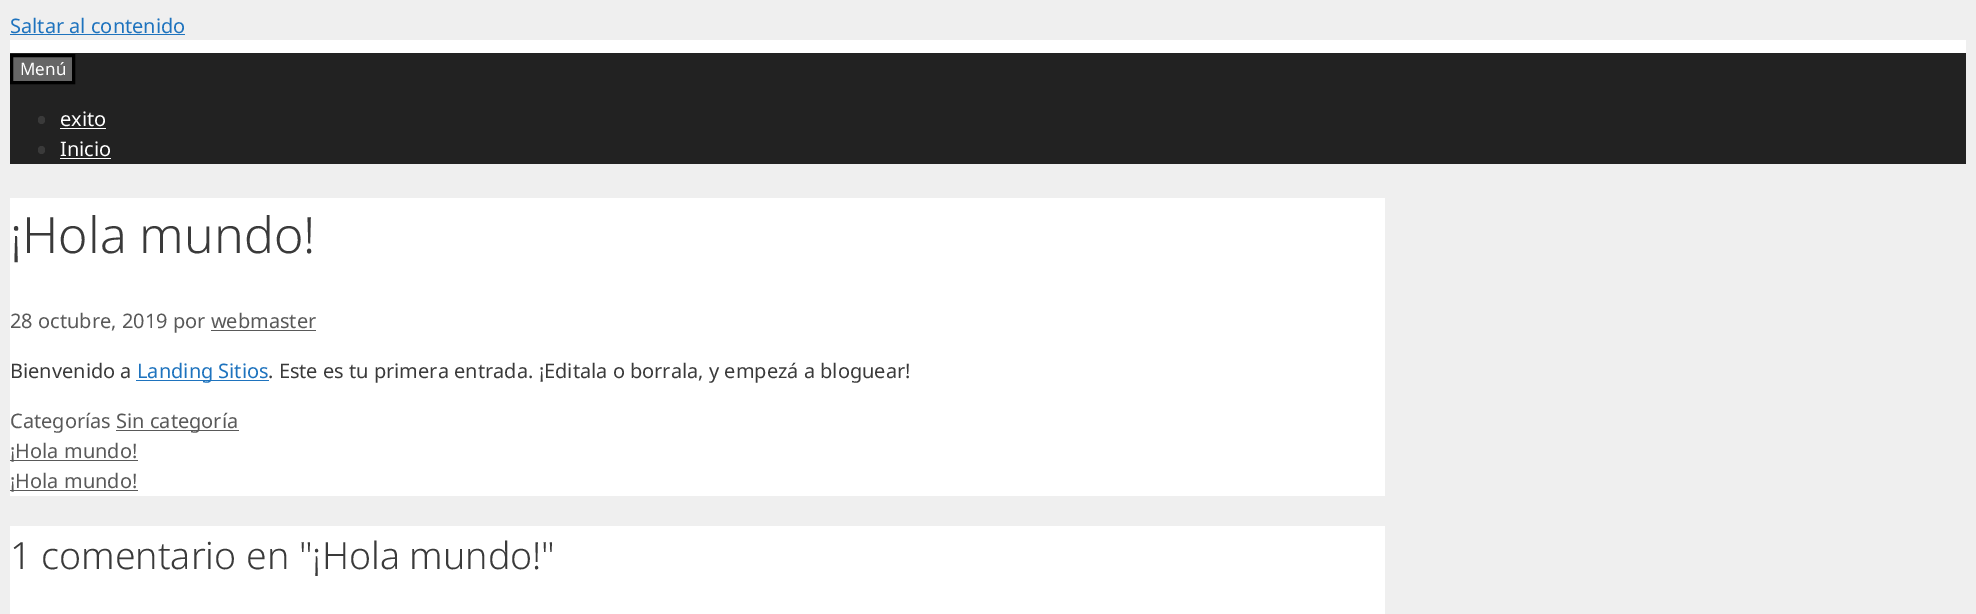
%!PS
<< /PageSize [1976 614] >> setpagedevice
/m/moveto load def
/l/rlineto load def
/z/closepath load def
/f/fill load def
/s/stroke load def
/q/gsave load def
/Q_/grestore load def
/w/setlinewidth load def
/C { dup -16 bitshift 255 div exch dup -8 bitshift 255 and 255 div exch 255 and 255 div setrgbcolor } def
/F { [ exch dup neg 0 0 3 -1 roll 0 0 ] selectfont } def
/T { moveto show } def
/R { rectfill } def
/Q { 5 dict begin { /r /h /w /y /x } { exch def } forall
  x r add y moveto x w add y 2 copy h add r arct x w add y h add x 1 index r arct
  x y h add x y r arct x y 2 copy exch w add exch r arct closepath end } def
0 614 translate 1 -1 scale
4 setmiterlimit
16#EFEFEF C
0 0 1976 614 R
/NotoSans-Regular 20 F
16#1E73BE C
(Saltar al contenido) 10 33 T
10 34 175 1 R
16#FFFFFF C
10 40 1956 13 R
16#222222 C
10 53 1956 111 R
16#666666 C
11.5 55.5 m 62 0 l 0 27 l -62 0 l z q f Q_
16#000000 C
3 w
s
/NotoSans-Regular 17 F
16#FFFFFF C
(Menú) 20 75 T
16#3A3A3A C
38 116 7 8 3.5 Q f
/NotoSans-Regular 20 F
16#FFFFFF C
(exito) 60 126 T
60 128 46 1 R
16#3A3A3A C
38 146 7 8 3.5 Q f
16#FFFFFF C
(Inicio) 60 156 T
60 158 51 1 R
10 198 1375 298 R
/NotoSans-Light 50 F
16#3A3A3A C
(¡Hola mundo!) 10 253 T
/NotoSans-Regular 20 F
16#595959 C
(28 octubre, 2019 por webmaster) 10 328 T
211 330 105 1 R
16#3A3A3A C
(Bienvenido a) 10 378 T
16#1E73BE C
136 380 133 1 R
(Landing Sitios) 137 378 T
16#3A3A3A C
(. Este es tu primera entrada. ¡Editala o borrala, y empezá a bloguear!) 268 378 T
16#595959 C
(Categorías) 10 428 T
116 430 123 1 R
(Sin categoría) 116 428 T
10 460 128 1 R
(¡Hola mundo!) 10 458 T
10 490 128 1 R
(¡Hola mundo!) 10 488 T
16#FFFFFF C
10 526 1375 88 R
/NotoSans-Light 37.5 F
16#3A3A3A C
(1 comentario en "¡Hola mundo!") 10 569 T
showpage
